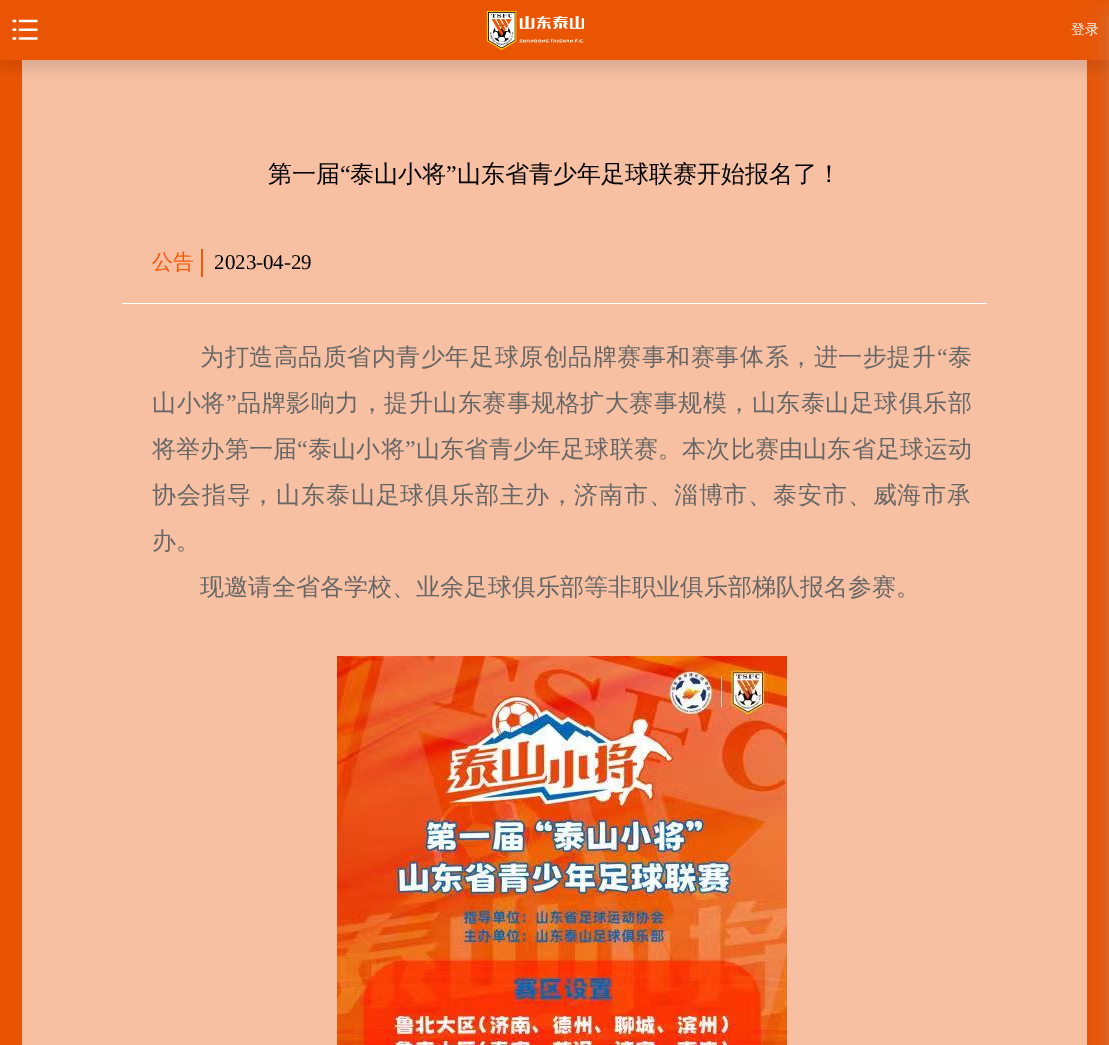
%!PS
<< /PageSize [1109 1045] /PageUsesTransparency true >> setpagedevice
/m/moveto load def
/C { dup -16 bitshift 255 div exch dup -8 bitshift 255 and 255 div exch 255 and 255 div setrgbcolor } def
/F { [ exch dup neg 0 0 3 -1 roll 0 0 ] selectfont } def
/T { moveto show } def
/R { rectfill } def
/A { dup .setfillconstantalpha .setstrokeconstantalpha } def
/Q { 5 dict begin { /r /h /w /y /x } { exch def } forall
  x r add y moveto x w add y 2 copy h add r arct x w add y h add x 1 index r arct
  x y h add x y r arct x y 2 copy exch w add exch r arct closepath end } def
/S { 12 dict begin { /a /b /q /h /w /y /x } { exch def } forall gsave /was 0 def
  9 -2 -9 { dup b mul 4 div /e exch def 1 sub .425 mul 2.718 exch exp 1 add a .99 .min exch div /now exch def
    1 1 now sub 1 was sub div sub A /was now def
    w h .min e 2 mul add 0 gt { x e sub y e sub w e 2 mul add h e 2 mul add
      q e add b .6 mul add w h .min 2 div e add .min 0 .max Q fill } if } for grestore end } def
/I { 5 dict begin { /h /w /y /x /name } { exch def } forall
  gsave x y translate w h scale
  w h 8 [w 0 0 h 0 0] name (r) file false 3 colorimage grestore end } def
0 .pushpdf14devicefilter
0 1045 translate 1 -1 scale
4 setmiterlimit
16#E95404 C
0 0 1109 1045 R
16#F7C0A2 C
22 60 1065 985 R
16#000000 C
0 10 1109 60 0 5 .1 S
16#EA5504 C
0 3 1109 57 R
16#A7A5A5 C
1109 15 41 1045 0 13.5 .38 S
(1.rgb) 12 19 26 21 I
(2.rgb) 486 11 98 39 I
/WenQuanYiZenHei-Medium 14 F
16#FFFFFF C
(登录) 1071 34 T
/WenQuanYiZenHei-Medium 24 F
16#000000 C
(第一届) 268 182 T
/LiberationSerif-Regular 24 F
(“) 340 182 T
/WenQuanYiZenHei-Medium 24 F
(泰山小将) 350 182 T
/LiberationSerif-Regular 24 F
(”) 446 182 T
/WenQuanYiZenHei-Medium 24 F
(山东省青少年足球联赛开始报名了！) 457 182 T
16#FFFFFF C
122 303 865 1 R
/WenQuanYiZenHei-Medium 21 F
16#F75602 C
(公告) 152 269 T
201 249 2 28 R
/LiberationSerif-Regular 21 F
16#000000 C
(2023-04-29) 214 269 T
/WenQuanYiZenHei-Medium 24 F
16#666666 C
200 365 m .55 0 (为打造高品质省内青少年足球原创品牌赛事和赛事体系，进一步提升) ashow
/LiberationSerif-Regular 24 F
937 365 m .55 0 (“) ashow
/WenQuanYiZenHei-Medium 24 F
948 365 m .55 0 (泰) ashow
152 411 m .5 0 (山小将) ashow
/LiberationSerif-Regular 24 F
226 411 m .5 0 (”) ashow
/WenQuanYiZenHei-Medium 24 F
237 411 m .5 0 (品牌影响力，提升山东赛事规格扩大赛事规模，山东泰山足球俱乐部) ashow
152 457 m .2 0 (将举办第一届) ashow
/LiberationSerif-Regular 24 F
297 457 m .2 0 (“) ashow
/WenQuanYiZenHei-Medium 24 F
308 457 m .2 0 (泰山小将) ashow
/LiberationSerif-Regular 24 F
405 457 m .2 0 (”) ashow
/WenQuanYiZenHei-Medium 24 F
416 457 m .2 0 (山东省青少年足球联赛。本次比赛由山东省足球运动) ashow
152 503 m .85 0 (协会指导，山东泰山足球俱乐部主办，济南市、淄博市、泰安市、威海市承) ashow
(办。) 152 549 T
(现邀请全省各学校、业余足球俱乐部等非职业俱乐部梯队报名参赛。) 200 595 T
(3.rgb) 337 656 450 389 I
.poppdf14devicefilter showpage
